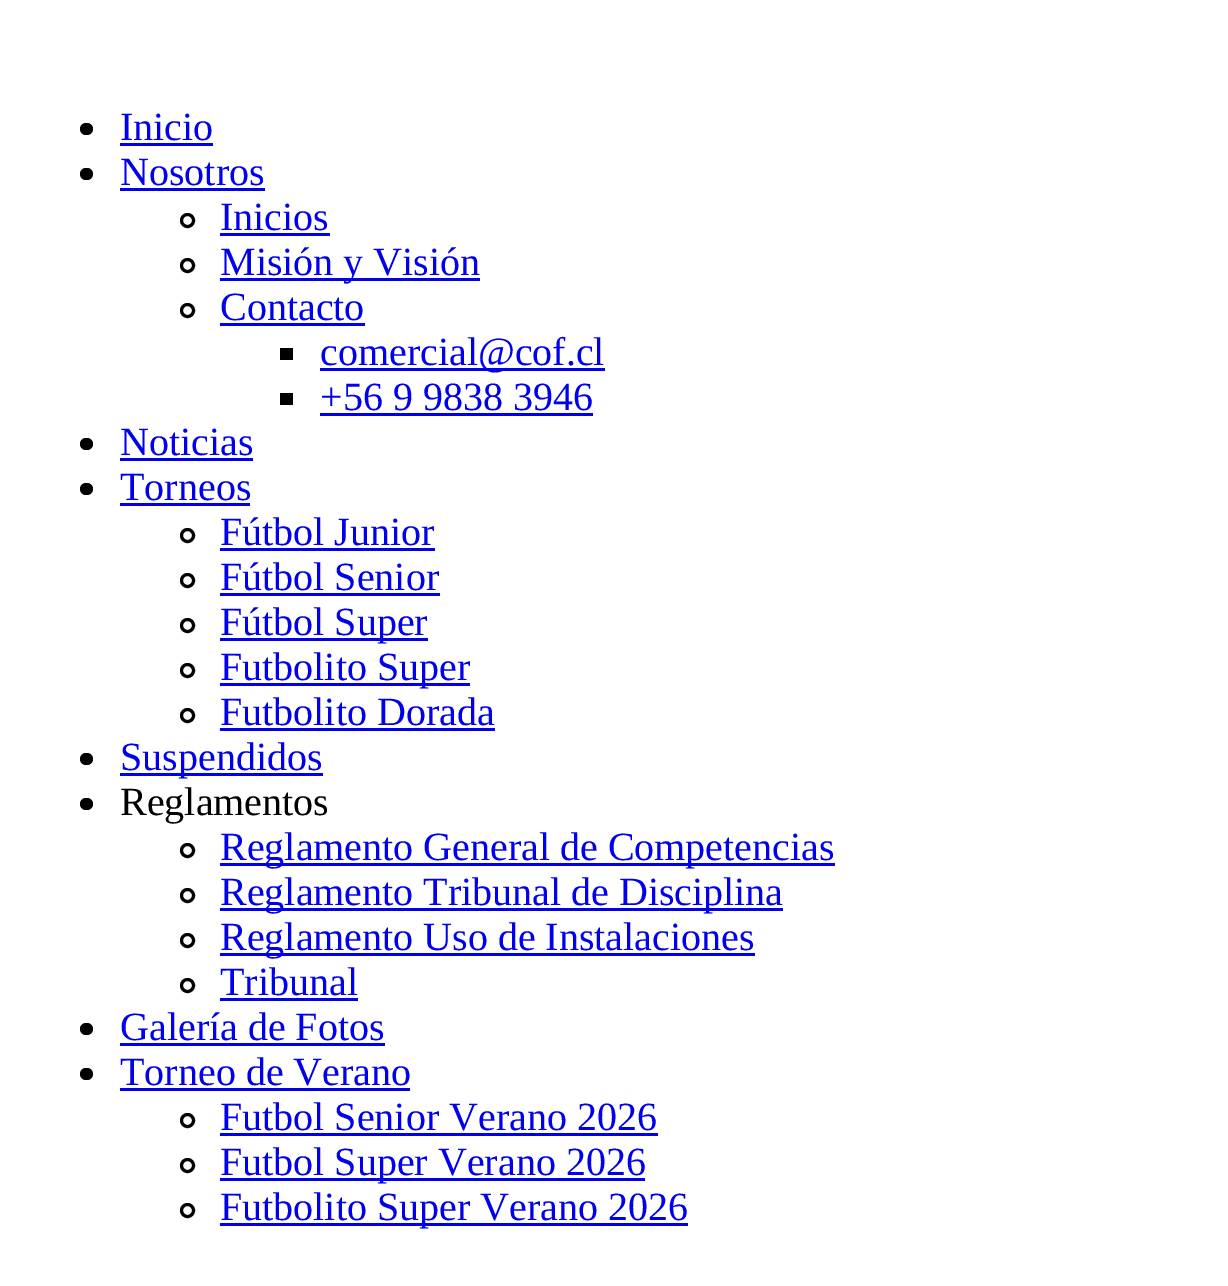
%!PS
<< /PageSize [1228 1286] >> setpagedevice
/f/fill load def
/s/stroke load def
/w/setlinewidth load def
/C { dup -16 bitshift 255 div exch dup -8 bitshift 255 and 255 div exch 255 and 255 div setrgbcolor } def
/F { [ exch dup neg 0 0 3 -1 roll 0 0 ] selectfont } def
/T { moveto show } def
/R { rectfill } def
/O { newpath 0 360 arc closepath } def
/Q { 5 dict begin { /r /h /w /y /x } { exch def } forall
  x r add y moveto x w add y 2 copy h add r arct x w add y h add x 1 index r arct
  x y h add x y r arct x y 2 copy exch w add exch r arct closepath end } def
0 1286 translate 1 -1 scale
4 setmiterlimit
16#FFFFFF C
0 0 1228 1286 R
16#000000 C
80 123 13 12 6 Q f
/LiberationSerif-Regular 40 F
16#0000EE C
(Inicio) 120 140 T
120 143 93 3 R
16#000000 C
80 168 13 12 6 Q f
16#0000EE C
(Nosotros) 120 185 T
120 188 145 3 R
16#000000 C
3 w
187.5 220.5 6 O s
16#0000EE C
(Inicios) 220 230 T
220 233 110 3 R
16#000000 C
187.5 265.5 6 O s
16#0000EE C
220 278 260 3 R
(Misión y Visión) 220 275 T
16#000000 C
187.5 310.5 6 O s
16#0000EE C
(Contacto) 220 320 T
220 323 145 3 R
16#000000 C
280 348 13 12 R
16#0000EE C
320 368 285 3 R
(comercial@cof.cl) 320 365 T
16#000000 C
280 393 13 12 R
16#0000EE C
(+56 9 9838 3946) 320 410 T
320 413 273 3 R
16#000000 C
80 438 13 12 6 Q f
16#0000EE C
(Noticias) 120 455 T
120 458 133 3 R
16#000000 C
80 483 13 12 6 Q f
16#0000EE C
(Torneos) 120 500 T
120 503 130 3 R
16#000000 C
187.5 535.5 6 O s
16#0000EE C
(Fútbol Junior) 220 545 T
220 548 215 3 R
16#000000 C
187.5 580.5 6 O s
16#0000EE C
(Fútbol Senior) 220 590 T
220 593 220 3 R
16#000000 C
187.5 625.5 6 O s
16#0000EE C
220 638 208 3 R
(Fútbol Super) 220 635 T
16#000000 C
187.5 670.5 6 O s
16#0000EE C
220 683 250 3 R
(Futbolito Super) 220 680 T
16#000000 C
187.5 715.5 6 O s
16#0000EE C
(Futbolito Dorada) 220 725 T
220 728 275 3 R
16#000000 C
80 753 13 12 6 Q f
16#0000EE C
120 773 203 3 R
(Suspendidos) 120 770 T
16#000000 C
80 798 13 12 6 Q f
(Reglamentos) 120 815 T
187.5 850.5 6 O s
16#0000EE C
220 863 615 3 R
(Reglamento General de Competencias) 220 860 T
16#000000 C
187.5 895.5 6 O s
16#0000EE C
220 908 563 3 R
(Reglamento Tribunal de Disciplina) 220 905 T
16#000000 C
187.5 940.5 6 O s
16#0000EE C
220 953 535 3 R
(Reglamento Uso de Instalaciones) 220 950 T
16#000000 C
187.5 985.5 6 O s
16#0000EE C
(Tribunal) 220 995 T
220 998 138 3 R
16#000000 C
80 1023 13 12 6 Q f
16#0000EE C
(Galería de Fotos) 120 1040 T
120 1043 265 3 R
16#000000 C
80 1068 13 12 6 Q f
16#0000EE C
(Torneo de Verano) 120 1085 T
120 1088 290 3 R
16#000000 C
187.5 1120.5 6 O s
16#0000EE C
(Futbol Senior Verano 2026) 220 1130 T
220 1133 438 3 R
16#000000 C
187.5 1165.5 6 O s
16#0000EE C
220 1178 425 3 R
(Futbol Super Verano 2026) 220 1175 T
16#000000 C
187.5 1210.5 6 O s
16#0000EE C
220 1223 468 3 R
(Futbolito Super Verano 2026) 220 1220 T
showpage
